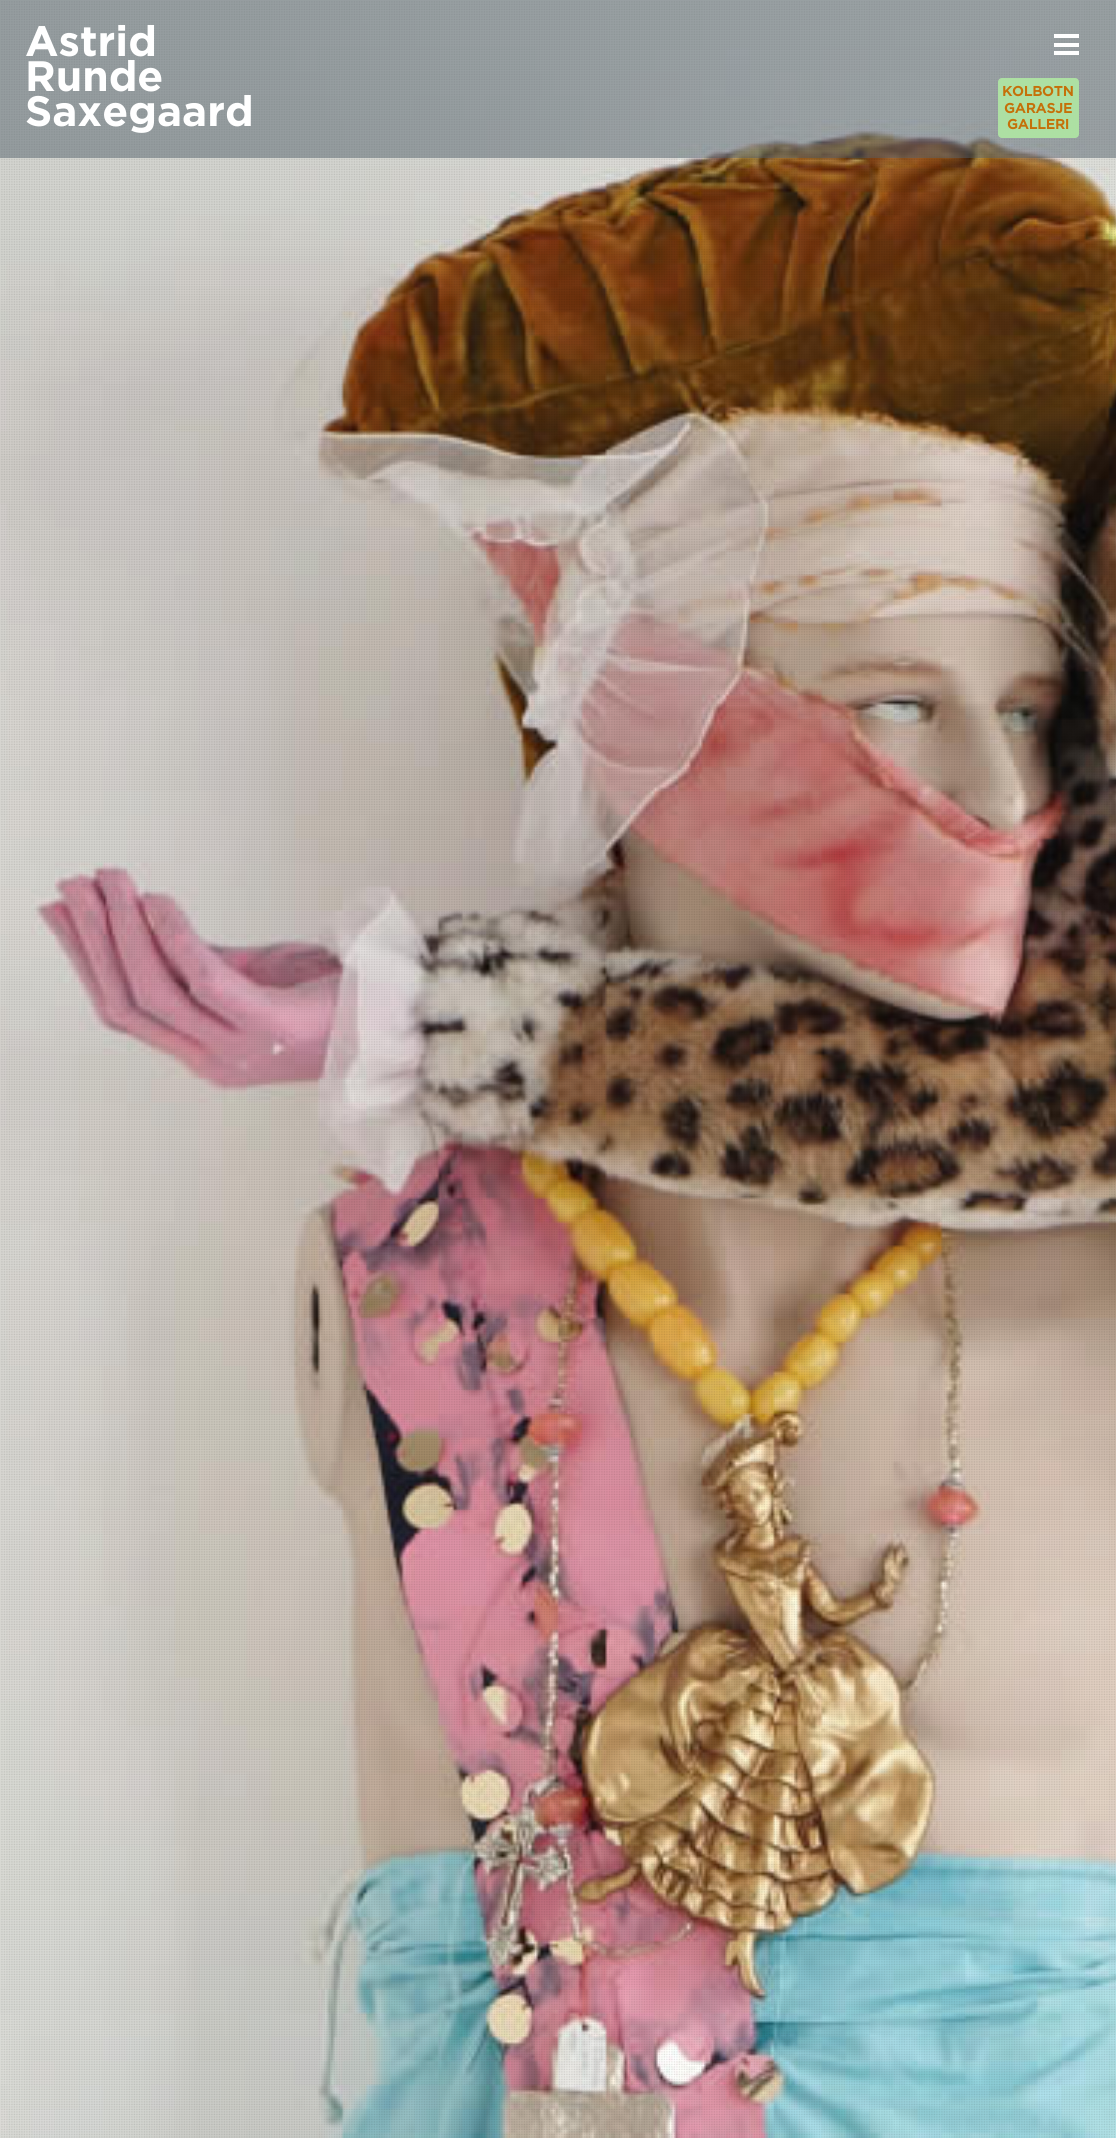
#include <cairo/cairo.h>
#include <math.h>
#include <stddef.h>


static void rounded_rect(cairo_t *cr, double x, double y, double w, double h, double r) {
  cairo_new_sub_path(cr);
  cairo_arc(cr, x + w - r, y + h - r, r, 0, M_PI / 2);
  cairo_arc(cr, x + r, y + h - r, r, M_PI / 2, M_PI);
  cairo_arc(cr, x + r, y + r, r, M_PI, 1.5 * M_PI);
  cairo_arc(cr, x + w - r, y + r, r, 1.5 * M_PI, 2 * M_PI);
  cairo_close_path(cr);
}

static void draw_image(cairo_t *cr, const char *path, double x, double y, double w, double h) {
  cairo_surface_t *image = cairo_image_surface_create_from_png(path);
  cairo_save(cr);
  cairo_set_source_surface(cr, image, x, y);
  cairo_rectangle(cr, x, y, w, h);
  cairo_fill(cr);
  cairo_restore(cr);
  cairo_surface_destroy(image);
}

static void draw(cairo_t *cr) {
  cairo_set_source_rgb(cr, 1, 1, 1);
  cairo_paint(cr);
  draw_image(cr, "images/1.png", 0, 0, 1116, 2138);
  draw_image(cr, "images/2.png", 1, 1, 1114, 2137);
  cairo_set_source_rgba(cr, 86 / 255.0, 101 / 255.0, 110 / 255.0, 0.5);
  cairo_rectangle(cr, 0, 0, 1116, 158);
  cairo_fill(cr);
  cairo_set_source_rgb(cr, 1, 1, 1);
  cairo_rectangle(cr, 1054, 34, 25, 4);
  cairo_fill(cr);
  cairo_rectangle(cr, 1054, 43, 25, 4);
  cairo_fill(cr);
  cairo_rectangle(cr, 1054, 51, 25, 4);
  cairo_fill(cr);
  cairo_set_source_rgb(cr, 173 / 255.0, 224 / 255.0, 163 / 255.0);
  rounded_rect(cr, 998, 78, 81, 60, 4);
  cairo_fill(cr);
  cairo_select_font_face(cr, "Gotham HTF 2", CAIRO_FONT_SLANT_NORMAL, CAIRO_FONT_WEIGHT_BOLD);
  cairo_set_font_size(cr, 42.5);
  cairo_set_source_rgb(cr, 1, 1, 1);
  cairo_move_to(cr, 25, 56);
  cairo_show_text(cr, "Astrid");
  cairo_move_to(cr, 25, 91);
  cairo_show_text(cr, "Runde");
  cairo_move_to(cr, 25, 126);
  cairo_show_text(cr, "Saxegaard");
  cairo_select_font_face(cr, "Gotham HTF", CAIRO_FONT_SLANT_NORMAL, CAIRO_FONT_WEIGHT_BOLD);
  cairo_set_font_size(cr, 13.75);
  cairo_set_source_rgb(cr, 197 / 255.0, 112 / 255.0, 9 / 255.0);
  cairo_move_to(cr, 1002, 96);
  cairo_show_text(cr, "KOLBOTN");
  cairo_move_to(cr, 1004, 113);
  cairo_show_text(cr, "GARASJE");
  cairo_move_to(cr, 1007, 129);
  cairo_show_text(cr, "GALLERI");
}

int main(void) {
  cairo_surface_t *surface = cairo_image_surface_create(CAIRO_FORMAT_RGB24, 1116, 2138);
  cairo_t *cr = cairo_create(surface);
  cairo_font_options_t *options = cairo_font_options_create();
  cairo_font_options_set_hint_metrics(options, CAIRO_HINT_METRICS_OFF);
  cairo_font_options_set_hint_style(options, CAIRO_HINT_STYLE_NONE);
  cairo_set_font_options(cr, options);
  cairo_set_miter_limit(cr, 4);
  draw(cr);
  cairo_surface_write_to_png(surface, "out.png");
  cairo_font_options_destroy(options);
  cairo_destroy(cr);
  cairo_surface_destroy(surface);
  return 0;
}
